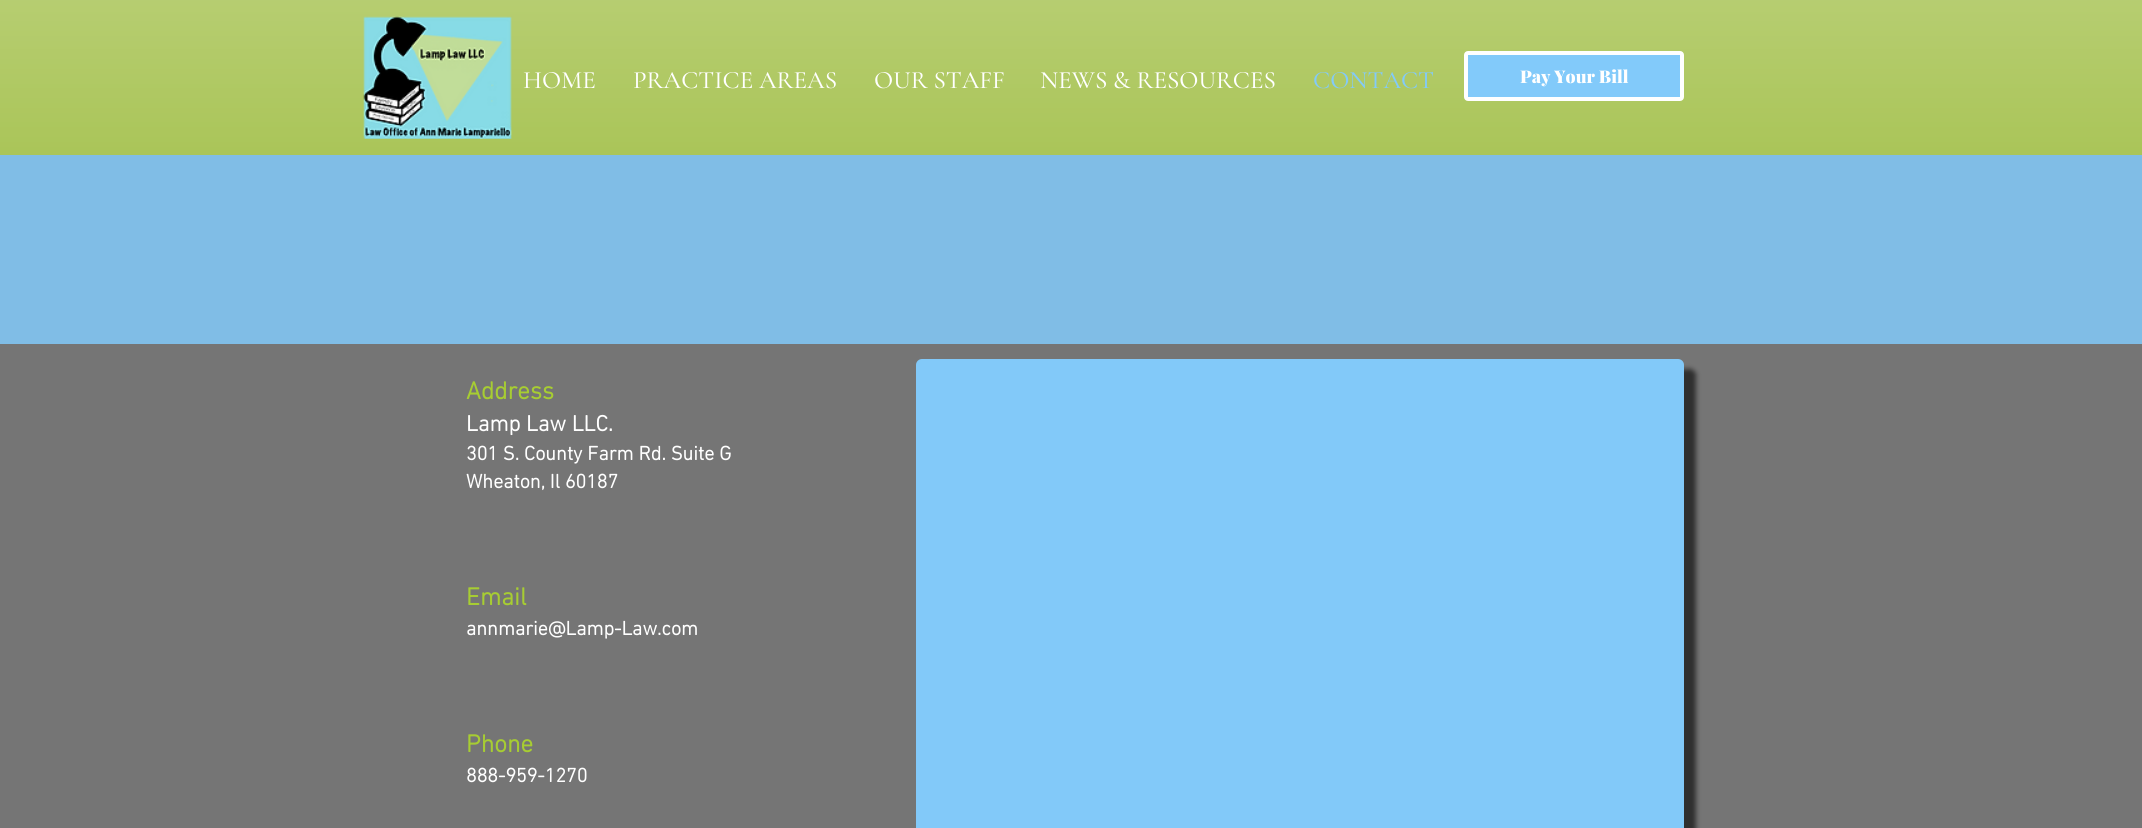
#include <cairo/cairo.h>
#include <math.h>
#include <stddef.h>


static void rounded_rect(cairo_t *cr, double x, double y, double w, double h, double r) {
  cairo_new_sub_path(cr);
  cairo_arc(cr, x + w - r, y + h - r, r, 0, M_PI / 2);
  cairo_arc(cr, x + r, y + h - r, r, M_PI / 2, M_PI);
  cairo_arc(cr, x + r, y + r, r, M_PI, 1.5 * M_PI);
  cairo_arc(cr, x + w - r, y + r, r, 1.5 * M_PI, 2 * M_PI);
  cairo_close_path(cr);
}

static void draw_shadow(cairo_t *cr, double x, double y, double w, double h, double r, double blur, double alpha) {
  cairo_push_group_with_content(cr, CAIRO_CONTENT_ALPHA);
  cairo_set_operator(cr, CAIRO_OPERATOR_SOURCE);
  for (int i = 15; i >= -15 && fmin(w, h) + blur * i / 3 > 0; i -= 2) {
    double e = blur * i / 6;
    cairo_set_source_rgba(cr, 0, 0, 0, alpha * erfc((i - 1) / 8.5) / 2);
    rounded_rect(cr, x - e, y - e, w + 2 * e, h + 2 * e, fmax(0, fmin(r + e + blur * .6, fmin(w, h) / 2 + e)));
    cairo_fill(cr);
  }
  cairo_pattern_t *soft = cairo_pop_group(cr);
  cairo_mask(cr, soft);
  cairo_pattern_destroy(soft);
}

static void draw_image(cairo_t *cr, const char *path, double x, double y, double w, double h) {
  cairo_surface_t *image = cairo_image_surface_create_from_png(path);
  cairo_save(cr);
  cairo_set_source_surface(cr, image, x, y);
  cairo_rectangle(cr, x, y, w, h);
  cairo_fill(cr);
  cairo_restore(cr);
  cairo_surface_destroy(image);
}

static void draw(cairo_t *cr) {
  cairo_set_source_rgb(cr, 117 / 255.0, 117 / 255.0, 117 / 255.0);
  cairo_paint(cr);
  cairo_set_source_rgb(cr, 157 / 255.0, 188 / 255.0, 63 / 255.0);
  cairo_rectangle(cr, 0, 0, 2142, 155);
  cairo_fill(cr);
  draw_image(cr, "images/1.png", 0, 0, 2142, 155);
  draw_image(cr, "images/2.png", 363, 16, 149, 123);
  cairo_set_source_rgb(cr, 130 / 255.0, 202 / 255.0, 250 / 255.0);
  rounded_rect(cr, 1466, 53, 216, 46, 2);
  cairo_fill_preserve(cr);
  cairo_set_source_rgb(cr, 1, 1, 1);
  cairo_set_line_width(cr, 4);
  cairo_stroke(cr);
  cairo_set_source_rgb(cr, 128 / 255.0, 189 / 255.0, 230 / 255.0);
  cairo_rectangle(cr, 0, 155, 2142, 189);
  cairo_fill(cr);
  cairo_save(cr);
  cairo_set_fill_rule(cr, CAIRO_FILL_RULE_EVEN_ODD);
  cairo_new_path(cr);
  cairo_move_to(cr, 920, 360);
  cairo_line_to(cr, 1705, 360);
  cairo_line_to(cr, 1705, 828);
  cairo_line_to(cr, 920, 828);
  cairo_close_path(cr);
  cairo_move_to(cr, 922, 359);
  cairo_line_to(cr, 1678, 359);
  cairo_curve_to(cr, 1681.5, 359, 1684, 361.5, 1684, 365);
  cairo_line_to(cr, 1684, 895);
  cairo_curve_to(cr, 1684, 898.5, 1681.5, 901, 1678, 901);
  cairo_line_to(cr, 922, 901);
  cairo_curve_to(cr, 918.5, 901, 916, 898.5, 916, 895);
  cairo_line_to(cr, 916, 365);
  cairo_curve_to(cr, 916, 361.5, 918.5, 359, 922, 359);
  cairo_close_path(cr);
  cairo_clip(cr);
  cairo_set_source_rgb(cr, 0, 0, 0);
  draw_shadow(cr, 929, 369, 767, 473, 6, 2.5, 0.6);
  cairo_restore(cr);
  cairo_set_source_rgba(cr, 130 / 255.0, 202 / 255.0, 250 / 255.0, 0.99);
  rounded_rect(cr, 916, 359, 768, 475, 6);
  cairo_fill(cr);
  cairo_select_font_face(cr, "Cormorant Garamond Medium", CAIRO_FONT_SLANT_NORMAL, CAIRO_FONT_WEIGHT_NORMAL);
  cairo_set_font_size(cr, 25);
  cairo_set_source_rgb(cr, 1, 1, 1);
  cairo_move_to(cr, 523, 88);
  cairo_show_text(cr, "HOME");
  cairo_move_to(cr, 633, 88);
  cairo_show_text(cr, "PRACTICE AREAS");
  cairo_move_to(cr, 874, 88);
  cairo_show_text(cr, "OUR STAFF");
  cairo_move_to(cr, 1040, 88);
  cairo_show_text(cr, "NEWS & RESOURCES");
  cairo_set_source_rgb(cr, 130 / 255.0, 202 / 255.0, 250 / 255.0);
  cairo_move_to(cr, 1313, 88);
  cairo_show_text(cr, "CONTACT");
  cairo_select_font_face(cr, "Playfair Display Black", CAIRO_FONT_SLANT_NORMAL, CAIRO_FONT_WEIGHT_NORMAL);
  cairo_set_font_size(cr, 17.5);
  cairo_set_source_rgb(cr, 1, 1, 1);
  cairo_move_to(cr, 1520, 83);
  cairo_show_text(cr, "Pay Your Bill");
  cairo_select_font_face(cr, "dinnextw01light", CAIRO_FONT_SLANT_NORMAL, CAIRO_FONT_WEIGHT_BOLD);
  cairo_set_font_size(cr, 25);
  cairo_set_source_rgb(cr, 167 / 255.0, 205 / 255.0, 50 / 255.0);
  cairo_move_to(cr, 466, 399);
  cairo_show_text(cr, "Address");
  cairo_set_font_size(cr, 22.5);
  cairo_set_source_rgb(cr, 1, 1, 1);
  cairo_move_to(cr, 466, 431);
  cairo_show_text(cr, "Lamp Law LLC.");
  cairo_set_font_size(cr, 20);
  cairo_move_to(cr, 466, 460);
  cairo_show_text(cr, "301 S. County Farm Rd. Suite G");
  cairo_move_to(cr, 466, 488);
  cairo_show_text(cr, "Wheaton, Il 60187");
  cairo_set_font_size(cr, 25);
  cairo_set_source_rgb(cr, 167 / 255.0, 205 / 255.0, 50 / 255.0);
  cairo_move_to(cr, 466, 605);
  cairo_show_text(cr, "Email");
  cairo_set_font_size(cr, 20);
  cairo_set_source_rgb(cr, 1, 1, 1);
  cairo_move_to(cr, 466, 635);
  cairo_show_text(cr, "annmarie@Lamp-Law.com");
  cairo_set_font_size(cr, 25);
  cairo_set_source_rgb(cr, 167 / 255.0, 205 / 255.0, 50 / 255.0);
  cairo_move_to(cr, 466, 752);
  cairo_show_text(cr, "Phone");
  cairo_set_font_size(cr, 20);
  cairo_set_source_rgb(cr, 1, 1, 1);
  cairo_move_to(cr, 466, 782);
  cairo_show_text(cr, "888-959-1270");
}

int main(void) {
  cairo_surface_t *surface = cairo_image_surface_create(CAIRO_FORMAT_RGB24, 2142, 828);
  cairo_t *cr = cairo_create(surface);
  cairo_font_options_t *options = cairo_font_options_create();
  cairo_font_options_set_hint_metrics(options, CAIRO_HINT_METRICS_OFF);
  cairo_font_options_set_hint_style(options, CAIRO_HINT_STYLE_NONE);
  cairo_set_font_options(cr, options);
  cairo_set_miter_limit(cr, 4);
  draw(cr);
  cairo_surface_write_to_png(surface, "out.png");
  cairo_font_options_destroy(options);
  cairo_destroy(cr);
  cairo_surface_destroy(surface);
  return 0;
}
